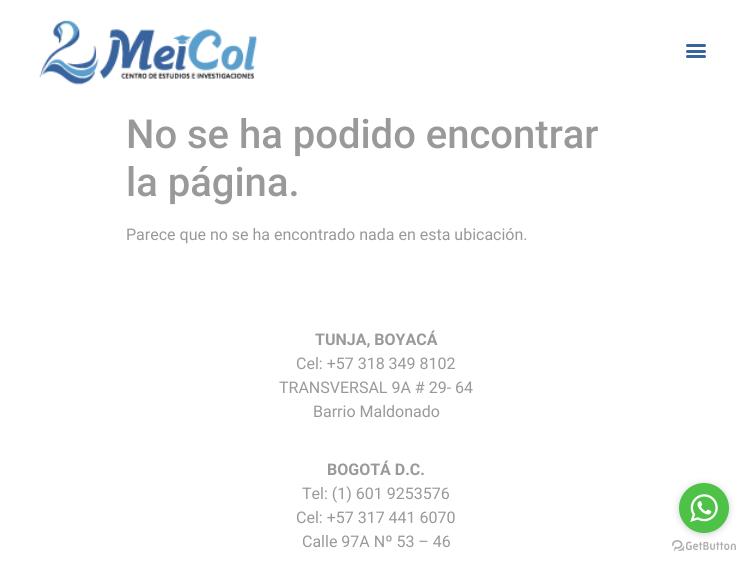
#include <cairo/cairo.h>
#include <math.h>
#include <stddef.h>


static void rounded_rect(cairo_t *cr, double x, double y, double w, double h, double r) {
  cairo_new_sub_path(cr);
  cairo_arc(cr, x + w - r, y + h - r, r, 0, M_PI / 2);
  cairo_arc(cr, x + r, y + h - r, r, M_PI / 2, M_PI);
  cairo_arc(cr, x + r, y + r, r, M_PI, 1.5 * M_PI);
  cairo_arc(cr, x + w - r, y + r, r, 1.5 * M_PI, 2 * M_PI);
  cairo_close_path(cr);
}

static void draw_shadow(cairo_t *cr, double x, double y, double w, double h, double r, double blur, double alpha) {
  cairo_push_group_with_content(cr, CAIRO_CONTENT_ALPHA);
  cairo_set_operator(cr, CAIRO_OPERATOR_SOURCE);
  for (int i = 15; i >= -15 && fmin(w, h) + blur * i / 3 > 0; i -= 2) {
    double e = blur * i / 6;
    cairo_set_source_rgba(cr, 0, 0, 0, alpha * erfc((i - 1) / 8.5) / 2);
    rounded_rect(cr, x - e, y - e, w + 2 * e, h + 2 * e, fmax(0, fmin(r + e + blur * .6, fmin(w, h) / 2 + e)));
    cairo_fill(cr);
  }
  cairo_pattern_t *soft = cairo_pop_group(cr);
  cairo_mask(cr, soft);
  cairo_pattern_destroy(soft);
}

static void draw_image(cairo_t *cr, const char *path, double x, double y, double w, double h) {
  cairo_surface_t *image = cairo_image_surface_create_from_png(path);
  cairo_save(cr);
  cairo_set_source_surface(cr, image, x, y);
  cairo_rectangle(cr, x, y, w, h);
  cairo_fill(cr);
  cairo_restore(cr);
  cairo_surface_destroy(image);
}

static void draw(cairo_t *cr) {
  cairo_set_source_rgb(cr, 1, 1, 1);
  cairo_paint(cr);
  draw_image(cr, "images/1.png", 39, 20, 218, 65);
  cairo_set_source_rgb(cr, 56 / 255.0, 99 / 255.0, 157 / 255.0);
  rounded_rect(cr, 686, 50, 20, 3, 1.5);
  cairo_fill(cr);
  rounded_rect(cr, 686, 44, 20, 3, 1.5);
  cairo_fill(cr);
  rounded_rect(cr, 686, 55, 20, 3, 1.5);
  cairo_fill(cr);
  draw_image(cr, "images/3.png", 672, 540, 64, 11);
  cairo_set_source_rgb(cr, 136 / 255.0, 136 / 255.0, 136 / 255.0);
  draw_shadow(cr, 679, 484, 50, 50, 25, 3.5, 0.4);
  cairo_set_source_rgb(cr, 77 / 255.0, 194 / 255.0, 71 / 255.0);
  cairo_arc(cr, 704, 508, 25, 0, 2 * M_PI);
  cairo_fill(cr);
  draw_image(cr, "images/2.png", 690, 494, 28, 28);
  cairo_select_font_face(cr, "Roboto Medium", CAIRO_FONT_SLANT_NORMAL, CAIRO_FONT_WEIGHT_NORMAL);
  cairo_set_font_size(cr, 40);
  cairo_set_source_rgb(cr, 153 / 255.0, 153 / 255.0, 153 / 255.0);
  cairo_move_to(cr, 126, 148);
  cairo_show_text(cr, "No se ha podido encontrar");
  cairo_move_to(cr, 126, 196);
  cairo_show_text(cr, "la página.");
  cairo_select_font_face(cr, "Roboto", CAIRO_FONT_SLANT_NORMAL, CAIRO_FONT_WEIGHT_NORMAL);
  cairo_set_font_size(cr, 16);
  cairo_move_to(cr, 126, 240);
  cairo_show_text(cr, "Parece que no se ha encontrado nada en esta ubicación.");
  cairo_select_font_face(cr, "Roboto", CAIRO_FONT_SLANT_NORMAL, CAIRO_FONT_WEIGHT_BOLD);
  cairo_move_to(cr, 315, 345);
  cairo_show_text(cr, "TUNJA, BOYACÁ");
  cairo_select_font_face(cr, "Roboto", CAIRO_FONT_SLANT_NORMAL, CAIRO_FONT_WEIGHT_NORMAL);
  cairo_move_to(cr, 296, 369);
  cairo_show_text(cr, "Cel: +57 318 349 8102");
  cairo_move_to(cr, 279, 393);
  cairo_show_text(cr, "TRANSVERSAL 9A # 29- 64");
  cairo_move_to(cr, 313, 417);
  cairo_show_text(cr, "Barrio Maldonado");
  cairo_select_font_face(cr, "Roboto", CAIRO_FONT_SLANT_NORMAL, CAIRO_FONT_WEIGHT_BOLD);
  cairo_move_to(cr, 327, 475);
  cairo_show_text(cr, "BOGOTÁ D.C.");
  cairo_select_font_face(cr, "Roboto", CAIRO_FONT_SLANT_NORMAL, CAIRO_FONT_WEIGHT_NORMAL);
  cairo_move_to(cr, 302, 499);
  cairo_show_text(cr, "Tel: (1) 601 9253576");
  cairo_move_to(cr, 296, 523);
  cairo_show_text(cr, "Cel: +57 317 441 6070");
  cairo_move_to(cr, 302, 547);
  cairo_show_text(cr, "Calle 97A Nº 53 – 46");
}

int main(void) {
  cairo_surface_t *surface = cairo_image_surface_create(CAIRO_FORMAT_RGB24, 752, 567);
  cairo_t *cr = cairo_create(surface);
  cairo_font_options_t *options = cairo_font_options_create();
  cairo_font_options_set_hint_metrics(options, CAIRO_HINT_METRICS_OFF);
  cairo_font_options_set_hint_style(options, CAIRO_HINT_STYLE_NONE);
  cairo_set_font_options(cr, options);
  cairo_set_miter_limit(cr, 4);
  draw(cr);
  cairo_surface_write_to_png(surface, "out.png");
  cairo_font_options_destroy(options);
  cairo_destroy(cr);
  cairo_surface_destroy(surface);
  return 0;
}
